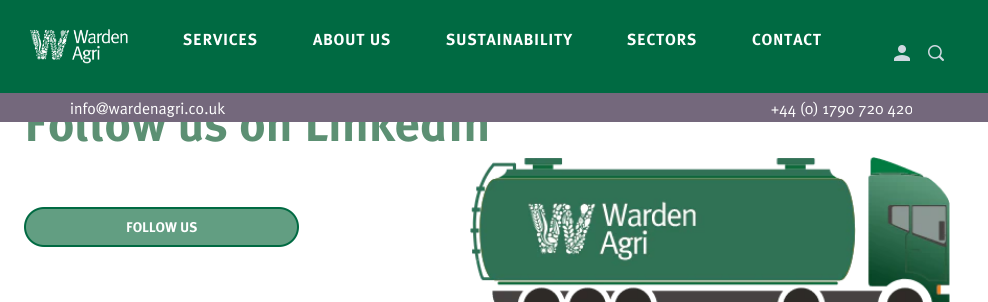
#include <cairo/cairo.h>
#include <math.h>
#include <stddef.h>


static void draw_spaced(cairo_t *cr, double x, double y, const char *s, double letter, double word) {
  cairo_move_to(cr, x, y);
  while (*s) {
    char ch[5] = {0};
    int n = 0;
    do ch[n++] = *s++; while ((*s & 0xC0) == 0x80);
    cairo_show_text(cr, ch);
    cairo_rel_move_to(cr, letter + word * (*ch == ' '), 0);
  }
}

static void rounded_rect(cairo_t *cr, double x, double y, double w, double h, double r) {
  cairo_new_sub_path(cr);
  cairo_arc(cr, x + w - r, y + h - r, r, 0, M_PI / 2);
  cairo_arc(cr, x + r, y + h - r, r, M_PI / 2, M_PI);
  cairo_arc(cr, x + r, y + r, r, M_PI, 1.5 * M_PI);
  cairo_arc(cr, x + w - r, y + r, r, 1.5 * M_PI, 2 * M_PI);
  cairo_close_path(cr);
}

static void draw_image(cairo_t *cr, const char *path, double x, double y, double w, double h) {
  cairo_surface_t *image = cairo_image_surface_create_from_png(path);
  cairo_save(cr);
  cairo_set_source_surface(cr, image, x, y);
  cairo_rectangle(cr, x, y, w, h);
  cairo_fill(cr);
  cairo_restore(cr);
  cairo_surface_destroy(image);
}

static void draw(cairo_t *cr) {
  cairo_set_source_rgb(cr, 1, 1, 1);
  cairo_paint(cr);
  cairo_set_source_rgb(cr, 0, 106 / 255.0, 66 / 255.0);
  cairo_rectangle(cr, 0, 0, 988, 93);
  cairo_fill(cr);
  draw_image(cr, "images/1.png", 30, 29, 98, 35);
  draw_image(cr, "images/2.png", 894, 45, 16, 16);
  draw_image(cr, "images/3.png", 928, 45, 16, 16);
  cairo_set_source_rgb(cr, 98 / 255.0, 158 / 255.0, 130 / 255.0);
  rounded_rect(cr, 25, 208, 273, 38, 19);
  cairo_fill_preserve(cr);
  cairo_set_source_rgb(cr, 0, 106 / 255.0, 66 / 255.0);
  cairo_stroke(cr);
  draw_image(cr, "images/4.png", 470, 157, 480, 145);
  cairo_select_font_face(cr, "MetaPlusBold", CAIRO_FONT_SLANT_NORMAL, CAIRO_FONT_WEIGHT_BOLD);
  cairo_set_font_size(cr, 16);
  cairo_set_source_rgb(cr, 1, 1, 1);
  draw_spaced(cr, 183, 45, "SERVICES", 0.75, 0);
  draw_spaced(cr, 313, 45, "ABOUT US", 0.75, 0);
  draw_spaced(cr, 446, 45, "SUSTAINABILITY", 0.75, 0);
  draw_spaced(cr, 627, 45, "SECTORS", 0.75, 0);
  draw_spaced(cr, 752, 45, "CONTACT", 0.75, 0);
  cairo_set_font_size(cr, 50);
  cairo_set_source_rgb(cr, 92 / 255.0, 144 / 255.0, 115 / 255.0);
  cairo_move_to(cr, 24, 141);
  cairo_show_text(cr, "Follow us on LinkedIn");
  cairo_set_source_rgb(cr, 116 / 255.0, 104 / 255.0, 124 / 255.0);
  cairo_rectangle(cr, 0, 93, 988, 29);
  cairo_fill(cr);
  cairo_select_font_face(cr, "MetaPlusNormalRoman", CAIRO_FONT_SLANT_NORMAL, CAIRO_FONT_WEIGHT_NORMAL);
  cairo_set_font_size(cr, 16);
  cairo_set_source_rgb(cr, 1, 1, 1);
  cairo_move_to(cr, 771, 114);
  cairo_show_text(cr, "+44 (0) 1790 720 420");
  cairo_move_to(cr, 70, 114);
  cairo_show_text(cr, "info@wardenagri.co.uk");
  cairo_select_font_face(cr, "MetaPlusBold", CAIRO_FONT_SLANT_NORMAL, CAIRO_FONT_WEIGHT_BOLD);
  cairo_set_font_size(cr, 14);
  cairo_move_to(cr, 126, 232);
  cairo_show_text(cr, "FOLLOW US");
}

int main(void) {
  cairo_surface_t *surface = cairo_image_surface_create(CAIRO_FORMAT_RGB24, 988, 302);
  cairo_t *cr = cairo_create(surface);
  cairo_font_options_t *options = cairo_font_options_create();
  cairo_font_options_set_hint_metrics(options, CAIRO_HINT_METRICS_OFF);
  cairo_font_options_set_hint_style(options, CAIRO_HINT_STYLE_NONE);
  cairo_set_font_options(cr, options);
  cairo_set_miter_limit(cr, 4);
  draw(cr);
  cairo_surface_write_to_png(surface, "out.png");
  cairo_font_options_destroy(options);
  cairo_destroy(cr);
  cairo_surface_destroy(surface);
  return 0;
}
